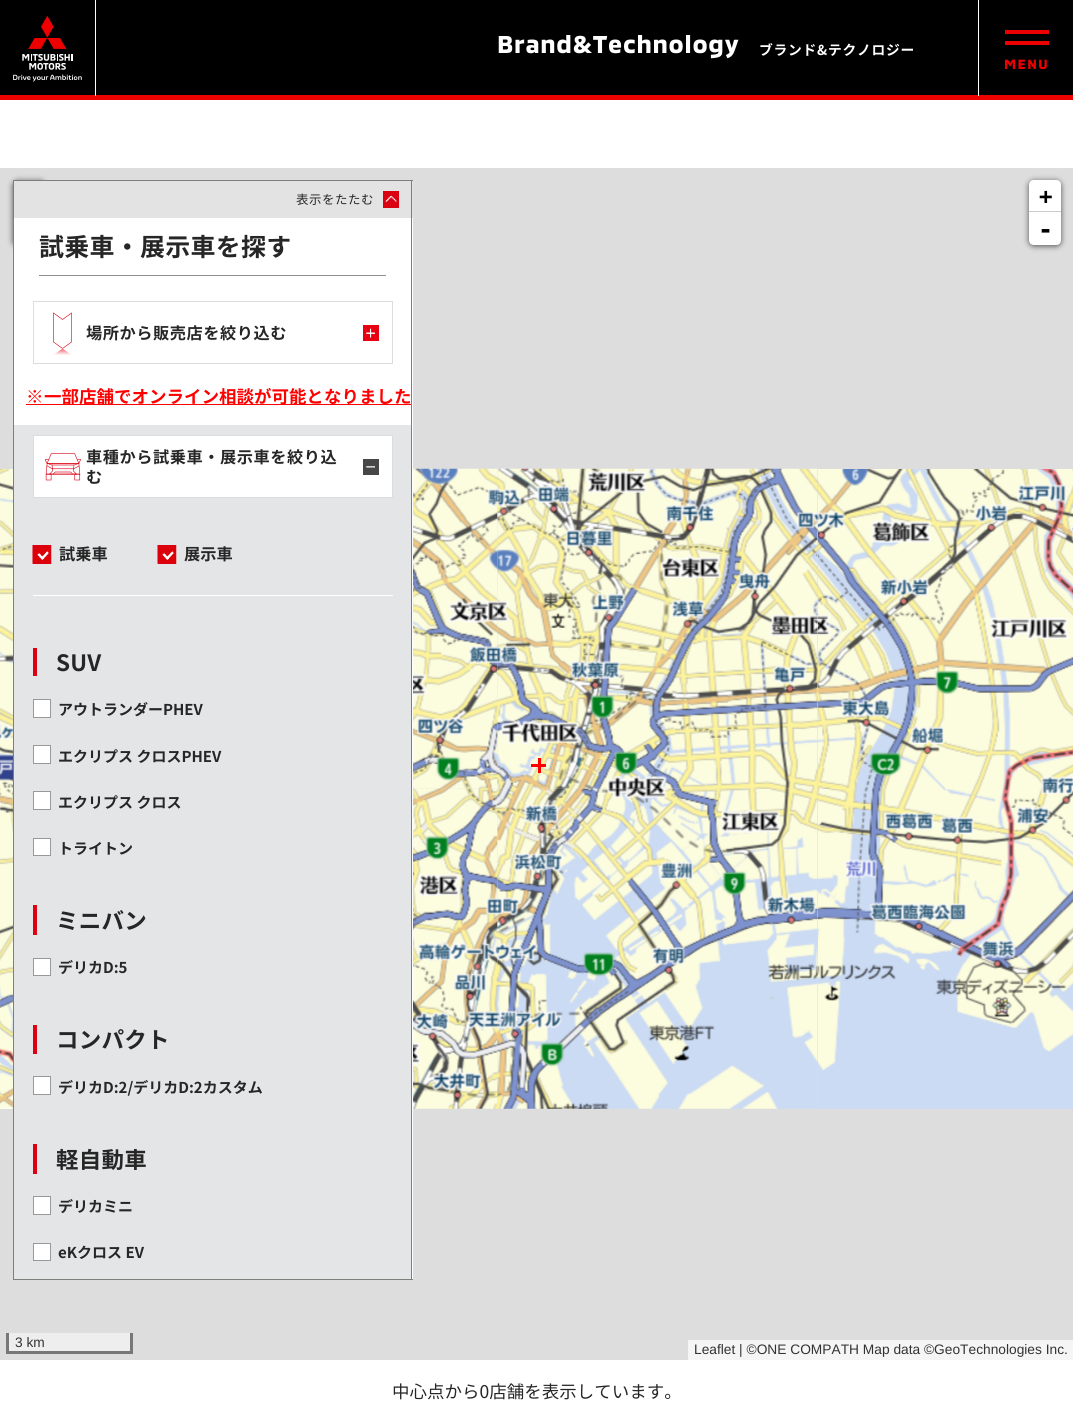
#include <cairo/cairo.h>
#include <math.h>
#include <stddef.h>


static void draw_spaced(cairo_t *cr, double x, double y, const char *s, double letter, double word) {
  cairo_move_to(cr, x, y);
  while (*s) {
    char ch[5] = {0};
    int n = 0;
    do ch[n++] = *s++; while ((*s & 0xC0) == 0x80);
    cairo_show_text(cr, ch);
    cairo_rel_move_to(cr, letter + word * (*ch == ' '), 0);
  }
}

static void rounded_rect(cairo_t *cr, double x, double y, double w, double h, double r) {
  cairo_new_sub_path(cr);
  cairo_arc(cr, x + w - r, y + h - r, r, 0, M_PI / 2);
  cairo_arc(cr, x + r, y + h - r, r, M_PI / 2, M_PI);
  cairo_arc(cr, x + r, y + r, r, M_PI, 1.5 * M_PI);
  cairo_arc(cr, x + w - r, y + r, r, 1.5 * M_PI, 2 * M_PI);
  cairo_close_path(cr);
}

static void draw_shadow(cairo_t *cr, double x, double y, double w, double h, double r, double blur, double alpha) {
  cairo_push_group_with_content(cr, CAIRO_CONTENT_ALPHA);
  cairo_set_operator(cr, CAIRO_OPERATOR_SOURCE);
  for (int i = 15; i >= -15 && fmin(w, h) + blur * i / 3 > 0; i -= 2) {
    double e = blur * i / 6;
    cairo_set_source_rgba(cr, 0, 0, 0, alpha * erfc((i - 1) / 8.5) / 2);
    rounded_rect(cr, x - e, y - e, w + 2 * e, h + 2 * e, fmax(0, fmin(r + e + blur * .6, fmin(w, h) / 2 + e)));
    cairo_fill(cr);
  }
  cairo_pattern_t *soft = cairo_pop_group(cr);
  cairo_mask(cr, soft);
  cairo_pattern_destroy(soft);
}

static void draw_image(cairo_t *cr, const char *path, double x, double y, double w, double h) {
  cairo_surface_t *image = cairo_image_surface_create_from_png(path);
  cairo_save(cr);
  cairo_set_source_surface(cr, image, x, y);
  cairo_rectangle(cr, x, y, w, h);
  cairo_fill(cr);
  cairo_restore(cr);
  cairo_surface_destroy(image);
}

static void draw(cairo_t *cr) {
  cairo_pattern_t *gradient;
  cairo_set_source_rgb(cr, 1, 1, 1);
  cairo_paint(cr);
  cairo_set_source_rgb(cr, 0, 0, 0);
  cairo_rectangle(cr, 0, 0, 1073, 95);
  cairo_fill(cr);
  cairo_set_source_rgb(cr, 237 / 255.0, 0, 0);
  cairo_rectangle(cr, 0, 95, 1073, 5);
  cairo_fill(cr);
  cairo_set_source_rgb(cr, 1, 1, 1);
  cairo_rectangle(cr, 95, 0, 1, 96);
  cairo_fill(cr);
  draw_image(cr, "images/1.png", 13, 15, 69, 67);
  cairo_rectangle(cr, 978, 0, 1, 96);
  cairo_fill(cr);
  cairo_set_source_rgb(cr, 237 / 255.0, 0, 0);
  cairo_rectangle(cr, 1005, 30, 44, 4);
  cairo_fill(cr);
  cairo_rectangle(cr, 1005, 41, 44, 4);
  cairo_fill(cr);
  cairo_set_source_rgb(cr, 221 / 255.0, 221 / 255.0, 221 / 255.0);
  cairo_rectangle(cr, 0, 168, 1073, 1192);
  cairo_fill(cr);
  cairo_set_source_rgb(cr, 0, 0, 0);
  draw_shadow(cr, 13, 181, 32, 65, 5, 3, 0.65);
  draw_shadow(cr, 1029, 181, 32, 65, 5, 3, 0.65);
  cairo_set_source_rgb(cr, 1, 1, 1);
  cairo_new_path(cr);
  cairo_move_to(cr, 1034, 180);
  cairo_line_to(cr, 1056, 180);
  cairo_curve_to(cr, 1059, 180, 1061, 182, 1061, 185);
  cairo_line_to(cr, 1061, 213);
  cairo_line_to(cr, 1029, 213);
  cairo_line_to(cr, 1029, 185);
  cairo_curve_to(cr, 1029, 182, 1031, 180, 1034, 180);
  cairo_close_path(cr);
  cairo_fill(cr);
  cairo_set_source_rgb(cr, 204 / 255.0, 204 / 255.0, 204 / 255.0);
  cairo_rectangle(cr, 1029, 211, 32, 1);
  cairo_fill(cr);
  cairo_set_source_rgb(cr, 1, 1, 1);
  cairo_new_path(cr);
  cairo_move_to(cr, 1029, 213);
  cairo_line_to(cr, 1061, 213);
  cairo_line_to(cr, 1061, 240);
  cairo_curve_to(cr, 1061, 243, 1059, 245, 1056, 245);
  cairo_line_to(cr, 1034, 245);
  cairo_curve_to(cr, 1031, 245, 1029, 243, 1029, 240);
  cairo_close_path(cr);
  cairo_fill(cr);
  cairo_set_source_rgb(cr, 238 / 255.0, 238 / 255.0, 238 / 255.0);
  cairo_rectangle(cr, 9, 1333, 121, 18);
  cairo_fill(cr);
  cairo_set_source_rgb(cr, 119 / 255.0, 119 / 255.0, 119 / 255.0);
  cairo_rectangle(cr, 130, 1333, 3, 21);
  cairo_fill(cr);
  cairo_rectangle(cr, 6, 1351, 127, 3);
  cairo_fill(cr);
  cairo_rectangle(cr, 6, 1333, 3, 21);
  cairo_fill(cr);
  cairo_set_source_rgb(cr, 245 / 255.0, 245 / 255.0, 245 / 255.0);
  cairo_rectangle(cr, 688, 1340, 385, 20);
  cairo_fill(cr);
  draw_image(cr, "images/2.png", 0, 469, 13, 320);
  draw_image(cr, "images/3.png", 413, 468, 85, 321);
  draw_image(cr, "images/4.png", 497, 468, 321, 321);
  draw_image(cr, "images/5.png", 818, 469, 255, 320);
  draw_image(cr, "images/6.png", 0, 789, 13, 320);
  draw_image(cr, "images/7.png", 413, 788, 85, 321);
  draw_image(cr, "images/8.png", 497, 788, 321, 321);
  draw_image(cr, "images/9.png", 818, 789, 255, 320);
  cairo_set_source_rgb(cr, 1, 0, 0);
  cairo_rectangle(cr, 538, 758, 3, 15);
  cairo_fill(cr);
  cairo_rectangle(cr, 531, 764, 15, 3);
  cairo_fill(cr);
  cairo_set_source_rgb(cr, 227 / 255.0, 227 / 255.0, 227 / 255.0);
  cairo_rectangle(cr, 14, 181, 399, 37);
  cairo_fill(cr);
  cairo_set_source_rgb(cr, 127 / 255.0, 126 / 255.0, 122 / 255.0);
  cairo_rectangle(cr, 13, 180, 400, 1);
  cairo_fill(cr);
  cairo_rectangle(cr, 411, 180, 1, 38);
  cairo_fill(cr);
  cairo_rectangle(cr, 13, 180, 1, 38);
  cairo_fill(cr);
  cairo_set_source_rgb(cr, 218 / 255.0, 1 / 255.0, 18 / 255.0);
  cairo_rectangle(cr, 383, 191, 16, 17);
  cairo_fill(cr);
  draw_image(cr, "images/10.png", 385, 195, 12, 8);
  cairo_set_source_rgb(cr, 1, 1, 1);
  cairo_rectangle(cr, 14, 218, 399, 1061);
  cairo_fill(cr);
  cairo_set_source_rgb(cr, 127 / 255.0, 126 / 255.0, 122 / 255.0);
  cairo_rectangle(cr, 411, 218, 1, 1062);
  cairo_fill(cr);
  cairo_rectangle(cr, 13, 1279, 400, 1);
  cairo_fill(cr);
  cairo_rectangle(cr, 13, 218, 1, 1062);
  cairo_fill(cr);
  cairo_set_source_rgb(cr, 144 / 255.0, 144 / 255.0, 144 / 255.0);
  cairo_rectangle(cr, 39, 275, 347, 1);
  cairo_fill(cr);
  cairo_rectangle(cr, 33.5, 301.5, 359, 62);
  cairo_set_source_rgb(cr, 220 / 255.0, 220 / 255.0, 220 / 255.0);
  cairo_set_line_width(cr, 1);
  cairo_stroke(cr);
  cairo_new_path(cr);
  cairo_move_to(cr, 71.5, 342);
  cairo_line_to(cr, 62.5, 348.5);
  cairo_line_to(cr, 53.5, 342);
  cairo_line_to(cr, 53.5, 313);
  cairo_line_to(cr, 62.5, 319.5);
  cairo_line_to(cr, 71.5, 313);
  cairo_close_path(cr);
  cairo_set_source_rgb(cr, 218 / 255.0, 1 / 255.0, 18 / 255.0);
  cairo_set_line_width(cr, 0.6);
  cairo_stroke(cr);
  gradient = cairo_pattern_create_linear(63, 350, 63, 355);
  cairo_pattern_add_color_stop_rgba(gradient, 0, 243 / 255.0, 128 / 255.0, 139 / 255.0, 1);
  cairo_pattern_add_color_stop_rgba(gradient, 1, 1, 1, 1, 1);
  cairo_set_source(cr, gradient);
  cairo_pattern_destroy(gradient);
  cairo_new_path(cr);
  cairo_move_to(cr, 53.5, 355);
  cairo_line_to(cr, 62.5, 348.5);
  cairo_line_to(cr, 71.5, 355);
  cairo_close_path(cr);
  cairo_fill(cr);
  cairo_set_source_rgb(cr, 230 / 255.0, 0, 18 / 255.0);
  cairo_rectangle(cr, 363, 325, 16, 16);
  cairo_fill(cr);
  draw_image(cr, "images/11.png", 366, 328, 9, 10);
  cairo_set_source_rgb(cr, 1, 0, 0);
  cairo_rectangle(cr, 26, 404, 385, 1);
  cairo_fill(cr);
  cairo_set_source_rgb(cr, 227 / 255.0, 229 / 255.0, 230 / 255.0);
  cairo_rectangle(cr, 14, 425, 397, 854);
  cairo_fill(cr);
  cairo_set_source_rgb(cr, 1, 1, 1);
  cairo_rectangle(cr, 33.5, 435.5, 359, 62);
  cairo_fill_preserve(cr);
  cairo_set_source_rgb(cr, 220 / 255.0, 220 / 255.0, 220 / 255.0);
  cairo_set_line_width(cr, 1);
  cairo_stroke(cr);
  draw_image(cr, "images/12.png", 44, 453, 37, 28);
  cairo_set_source_rgb(cr, 71 / 255.0, 71 / 255.0, 71 / 255.0);
  cairo_rectangle(cr, 363, 459, 16, 16);
  cairo_fill(cr);
  draw_image(cr, "images/13.png", 366, 466, 9, 2);
  cairo_set_source_rgb(cr, 1, 1, 1);
  cairo_rectangle(cr, 33, 595, 360, 1);
  cairo_fill(cr);
  draw_image(cr, "images/14.png", 32, 545, 20, 19);
  cairo_rectangle(cr, 33.5, 545.5, 17, 18);
  cairo_set_source_rgb(cr, 218 / 255.0, 0, 18 / 255.0);
  cairo_stroke(cr);
  draw_image(cr, "images/14.png", 157, 545, 20, 19);
  cairo_rectangle(cr, 158.5, 545.5, 17, 18);
  cairo_stroke(cr);
  cairo_set_source_rgb(cr, 221 / 255.0, 0, 18 / 255.0);
  cairo_rectangle(cr, 33, 648, 4, 28);
  cairo_fill(cr);
  cairo_set_source_rgb(cr, 1, 1, 1);
  cairo_rectangle(cr, 33.5, 699.5, 17, 18);
  cairo_fill_preserve(cr);
  cairo_set_source_rgb(cr, 153 / 255.0, 153 / 255.0, 153 / 255.0);
  cairo_stroke(cr);
  cairo_set_source_rgb(cr, 1, 1, 1);
  cairo_rectangle(cr, 33.5, 745.5, 17, 18);
  cairo_fill_preserve(cr);
  cairo_set_source_rgb(cr, 153 / 255.0, 153 / 255.0, 153 / 255.0);
  cairo_stroke(cr);
  cairo_set_source_rgb(cr, 1, 1, 1);
  cairo_rectangle(cr, 33.5, 791.5, 17, 18);
  cairo_fill_preserve(cr);
  cairo_set_source_rgb(cr, 153 / 255.0, 153 / 255.0, 153 / 255.0);
  cairo_stroke(cr);
  cairo_set_source_rgb(cr, 1, 1, 1);
  cairo_rectangle(cr, 33.5, 838.5, 17, 17);
  cairo_fill_preserve(cr);
  cairo_set_source_rgb(cr, 153 / 255.0, 153 / 255.0, 153 / 255.0);
  cairo_stroke(cr);
  cairo_set_source_rgb(cr, 221 / 255.0, 0, 18 / 255.0);
  cairo_rectangle(cr, 33, 905, 4, 30);
  cairo_fill(cr);
  cairo_set_source_rgb(cr, 1, 1, 1);
  cairo_rectangle(cr, 33.5, 958.5, 17, 17);
  cairo_fill_preserve(cr);
  cairo_set_source_rgb(cr, 153 / 255.0, 153 / 255.0, 153 / 255.0);
  cairo_stroke(cr);
  cairo_set_source_rgb(cr, 221 / 255.0, 0, 18 / 255.0);
  cairo_rectangle(cr, 33, 1025, 4, 29);
  cairo_fill(cr);
  cairo_set_source_rgb(cr, 1, 1, 1);
  cairo_rectangle(cr, 33.5, 1076.5, 17, 18);
  cairo_fill_preserve(cr);
  cairo_set_source_rgb(cr, 153 / 255.0, 153 / 255.0, 153 / 255.0);
  cairo_stroke(cr);
  cairo_set_source_rgb(cr, 221 / 255.0, 0, 18 / 255.0);
  cairo_rectangle(cr, 33, 1144, 4, 30);
  cairo_fill(cr);
  cairo_set_source_rgb(cr, 1, 1, 1);
  cairo_rectangle(cr, 33.5, 1196.5, 17, 18);
  cairo_fill_preserve(cr);
  cairo_set_source_rgb(cr, 153 / 255.0, 153 / 255.0, 153 / 255.0);
  cairo_stroke(cr);
  cairo_set_source_rgb(cr, 1, 1, 1);
  cairo_rectangle(cr, 33.5, 1243.5, 17, 17);
  cairo_fill_preserve(cr);
  cairo_set_source_rgb(cr, 153 / 255.0, 153 / 255.0, 153 / 255.0);
  cairo_stroke(cr);
  cairo_select_font_face(cr, "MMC", CAIRO_FONT_SLANT_NORMAL, CAIRO_FONT_WEIGHT_BOLD);
  cairo_set_font_size(cr, 25);
  cairo_set_source_rgb(cr, 1, 1, 1);
  draw_spaced(cr, 497, 53, "Brand&Technology", 0.75, 0);
  cairo_select_font_face(cr, "Noto Sans JP", CAIRO_FONT_SLANT_NORMAL, CAIRO_FONT_WEIGHT_BOLD);
  cairo_set_font_size(cr, 13.75);
  draw_spaced(cr, 759, 55, "ブランド&テクノロジー", 0.75, 0);
  cairo_select_font_face(cr, "MMC", CAIRO_FONT_SLANT_NORMAL, CAIRO_FONT_WEIGHT_BOLD);
  cairo_set_source_rgb(cr, 237 / 255.0, 0, 0);
  draw_spaced(cr, 1004, 69, "MENU", 1.5, 0);
  cairo_select_font_face(cr, "DejaVu Sans Mono", CAIRO_FONT_SLANT_NORMAL, CAIRO_FONT_WEIGHT_BOLD);
  cairo_set_font_size(cr, 22.5);
  cairo_set_source_rgb(cr, 0, 0, 0);
  cairo_move_to(cr, 1039, 204);
  cairo_show_text(cr, "+");
  cairo_set_font_size(cr, 25);
  cairo_move_to(cr, 1038, 238);
  cairo_show_text(cr, "-");
  cairo_select_font_face(cr, "Liberation Sans", CAIRO_FONT_SLANT_NORMAL, CAIRO_FONT_WEIGHT_NORMAL);
  cairo_set_font_size(cr, 13.75);
  cairo_set_source_rgb(cr, 51 / 255.0, 51 / 255.0, 51 / 255.0);
  cairo_move_to(cr, 15, 1347);
  cairo_show_text(cr, "3 km");
  cairo_move_to(cr, 694, 1354);
  cairo_show_text(cr, "Leaflet | ©ONE COMPATH Map data ©GeoTechnologies Inc.");
  cairo_select_font_face(cr, "Noto Sans JP", CAIRO_FONT_SLANT_NORMAL, CAIRO_FONT_WEIGHT_NORMAL);
  cairo_set_font_size(cr, 17.5);
  cairo_set_source_rgb(cr, 38 / 255.0, 38 / 255.0, 38 / 255.0);
  cairo_move_to(cr, 392, 1398);
  cairo_show_text(cr, "中心点から0店舗を表示しています。");
  cairo_set_font_size(cr, 12.5);
  draw_spaced(cr, 296, 204, "表示をたたむ", 0.5, 0);
  cairo_select_font_face(cr, "Noto Sans JP", CAIRO_FONT_SLANT_NORMAL, CAIRO_FONT_WEIGHT_BOLD);
  cairo_set_font_size(cr, 25);
  draw_spaced(cr, 39, 256, "試乗車・展示車を探す", 0.25, 0);
  cairo_set_font_size(cr, 16.25);
  draw_spaced(cr, 86, 339, "場所から販売店を絞り込む", 0.5, 0);
  cairo_select_font_face(cr, "Noto Sans CJK JP", CAIRO_FONT_SLANT_NORMAL, CAIRO_FONT_WEIGHT_BOLD);
  cairo_set_font_size(cr, 17.5);
  cairo_set_source_rgb(cr, 1, 0, 0);
  cairo_move_to(cr, 26, 403);
  cairo_show_text(cr, "※");
  cairo_select_font_face(cr, "Noto Sans JP", CAIRO_FONT_SLANT_NORMAL, CAIRO_FONT_WEIGHT_BOLD);
  cairo_move_to(cr, 44, 403);
  cairo_show_text(cr, "一部店舗でオンライン相談が可能となりました");
  cairo_set_font_size(cr, 16.25);
  cairo_set_source_rgb(cr, 38 / 255.0, 38 / 255.0, 38 / 255.0);
  draw_spaced(cr, 86, 463, "車種から試乗車・展示車を絞り込", 0.5, 0);
  draw_spaced(cr, 86, 483, "む", 0.5, 0);
  cairo_move_to(cr, 59, 560);
  cairo_show_text(cr, "試乗車");
  cairo_move_to(cr, 184, 560);
  cairo_show_text(cr, "展示車");
  cairo_set_font_size(cr, 22.5);
  draw_spaced(cr, 56, 671, "SUV", 0.25, 0);
  cairo_set_font_size(cr, 15);
  cairo_move_to(cr, 58, 715);
  cairo_show_text(cr, "アウトランダーPHEV");
  cairo_move_to(cr, 58, 762);
  cairo_show_text(cr, "エクリプス クロスPHEV");
  cairo_move_to(cr, 58, 808);
  cairo_show_text(cr, "エクリプス クロス");
  cairo_move_to(cr, 58, 854);
  cairo_show_text(cr, "トライトン");
  cairo_set_font_size(cr, 22.5);
  draw_spaced(cr, 56, 929, "ミニバン", 0.25, 0);
  cairo_set_font_size(cr, 15);
  cairo_move_to(cr, 58, 973);
  cairo_show_text(cr, "デリカD:5");
  cairo_set_font_size(cr, 22.5);
  draw_spaced(cr, 56, 1048, "コンパクト", 0.25, 0);
  cairo_set_font_size(cr, 15);
  cairo_move_to(cr, 58, 1093);
  cairo_show_text(cr, "デリカD:2/デリカD:2カスタム");
  cairo_set_font_size(cr, 22.5);
  draw_spaced(cr, 56, 1168, "軽自動車", 0.25, 0);
  cairo_set_font_size(cr, 15);
  cairo_move_to(cr, 58, 1212);
  cairo_show_text(cr, "デリカミニ");
  cairo_move_to(cr, 58, 1258);
  cairo_show_text(cr, "eKクロス EV");
}

int main(void) {
  cairo_surface_t *surface = cairo_image_surface_create(CAIRO_FORMAT_RGB24, 1073, 1416);
  cairo_t *cr = cairo_create(surface);
  cairo_font_options_t *options = cairo_font_options_create();
  cairo_font_options_set_hint_metrics(options, CAIRO_HINT_METRICS_OFF);
  cairo_font_options_set_hint_style(options, CAIRO_HINT_STYLE_NONE);
  cairo_set_font_options(cr, options);
  cairo_set_miter_limit(cr, 4);
  draw(cr);
  cairo_surface_write_to_png(surface, "out.png");
  cairo_font_options_destroy(options);
  cairo_destroy(cr);
  cairo_surface_destroy(surface);
  return 0;
}
